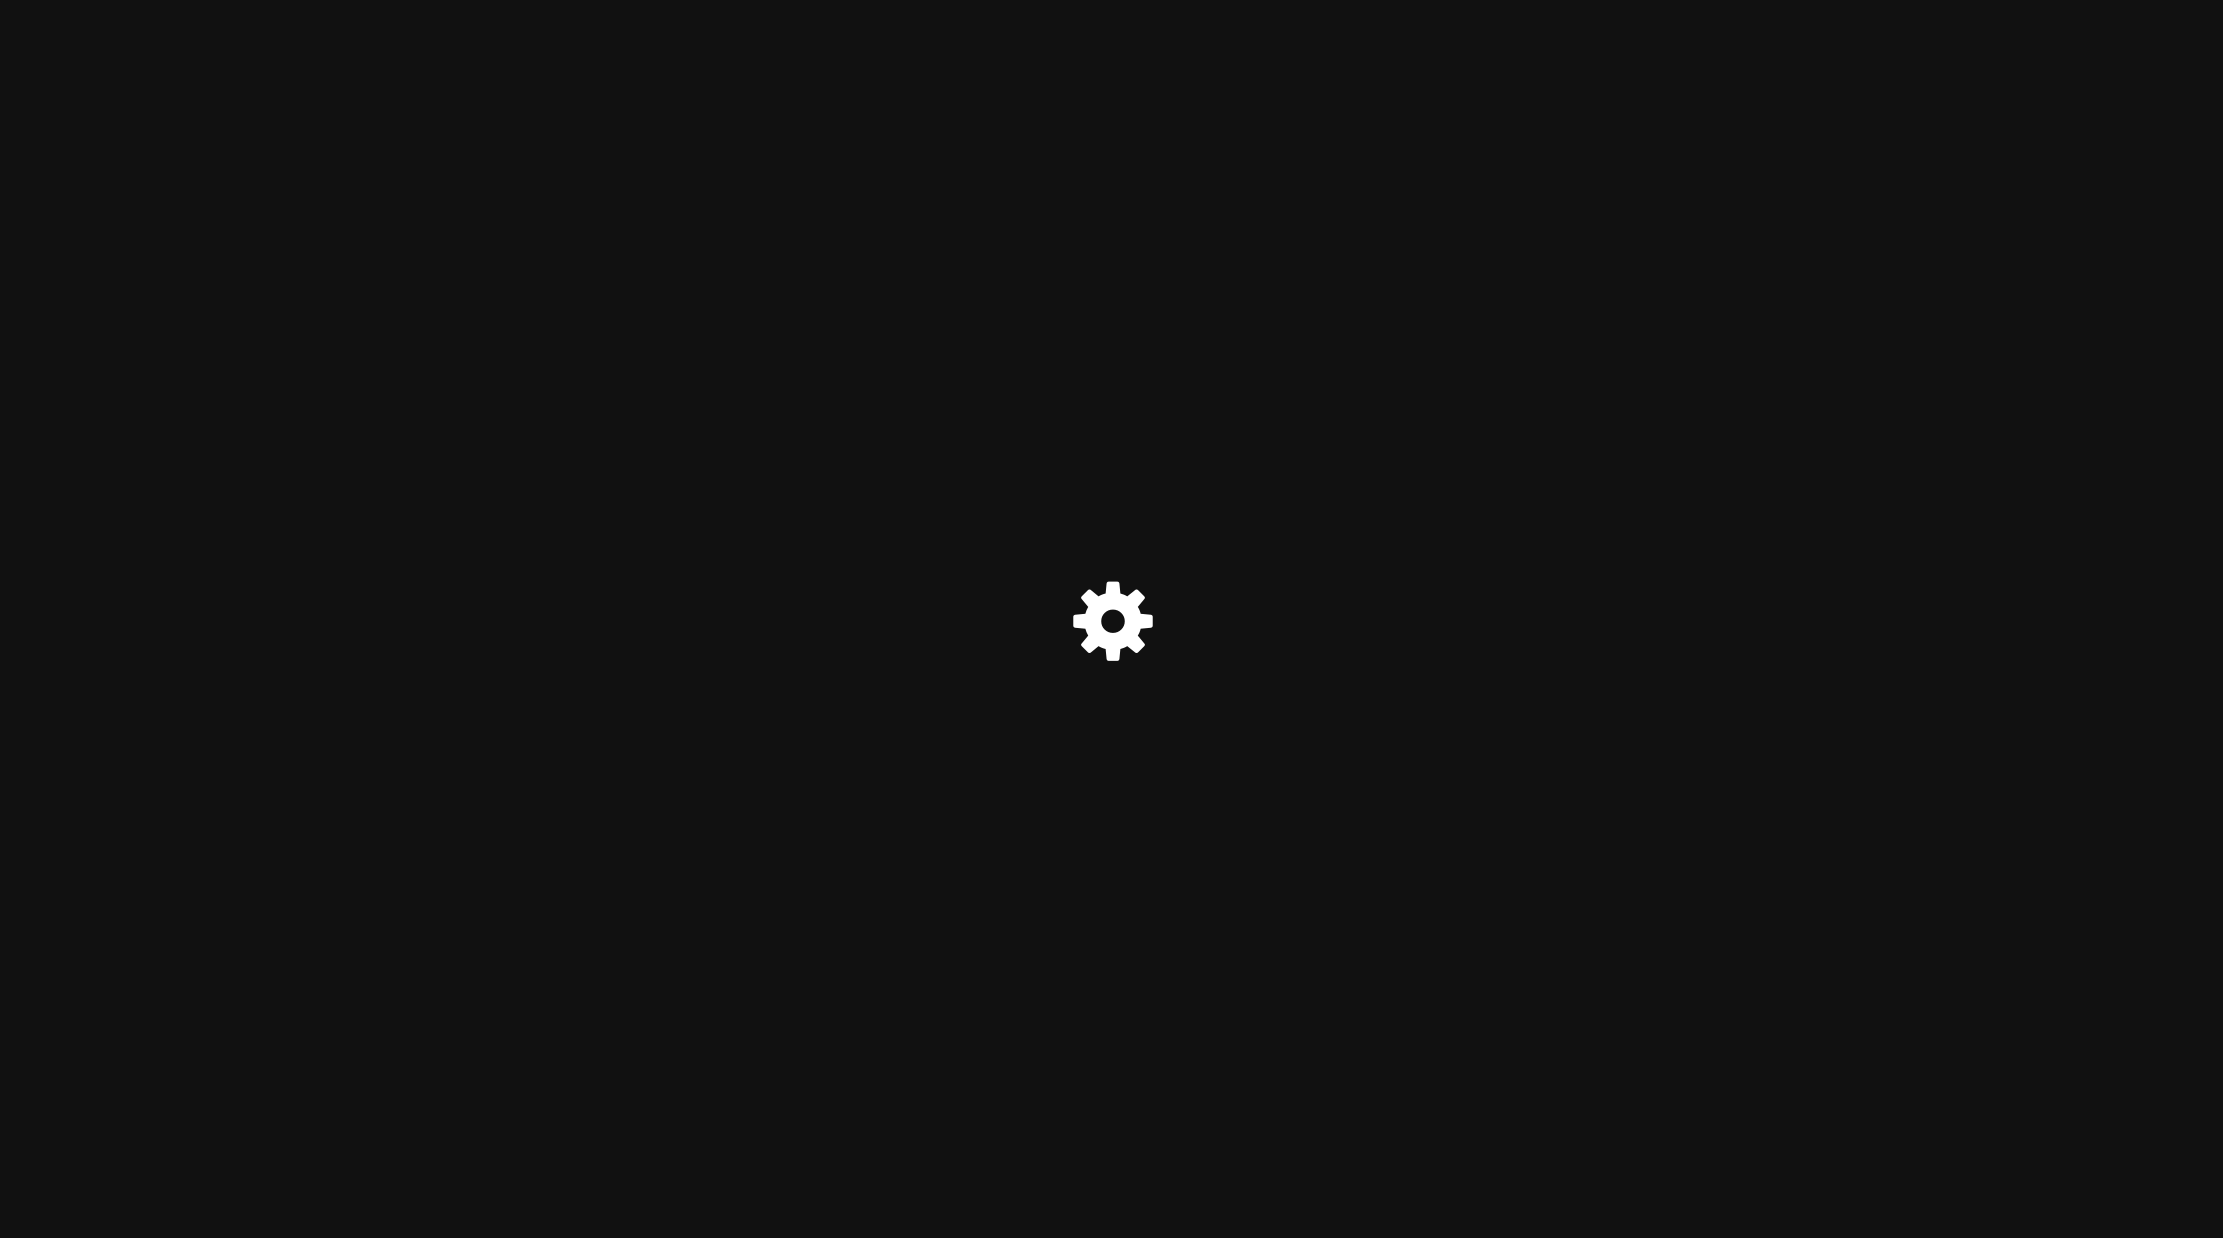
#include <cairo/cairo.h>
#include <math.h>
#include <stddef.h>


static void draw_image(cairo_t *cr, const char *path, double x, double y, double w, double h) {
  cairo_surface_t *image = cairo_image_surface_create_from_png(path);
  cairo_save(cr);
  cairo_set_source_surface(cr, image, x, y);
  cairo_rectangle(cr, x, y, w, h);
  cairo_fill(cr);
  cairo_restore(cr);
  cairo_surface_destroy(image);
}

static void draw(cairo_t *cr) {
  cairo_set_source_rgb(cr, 17 / 255.0, 17 / 255.0, 17 / 255.0);
  cairo_paint(cr);
  draw_image(cr, "images/1.png", 1073, 581, 80, 80);
}

int main(void) {
  cairo_surface_t *surface = cairo_image_surface_create(CAIRO_FORMAT_RGB24, 2223, 1238);
  cairo_t *cr = cairo_create(surface);
  cairo_font_options_t *options = cairo_font_options_create();
  cairo_font_options_set_hint_metrics(options, CAIRO_HINT_METRICS_OFF);
  cairo_font_options_set_hint_style(options, CAIRO_HINT_STYLE_NONE);
  cairo_set_font_options(cr, options);
  cairo_set_miter_limit(cr, 4);
  draw(cr);
  cairo_surface_write_to_png(surface, "out.png");
  cairo_font_options_destroy(options);
  cairo_destroy(cr);
  cairo_surface_destroy(surface);
  return 0;
}
